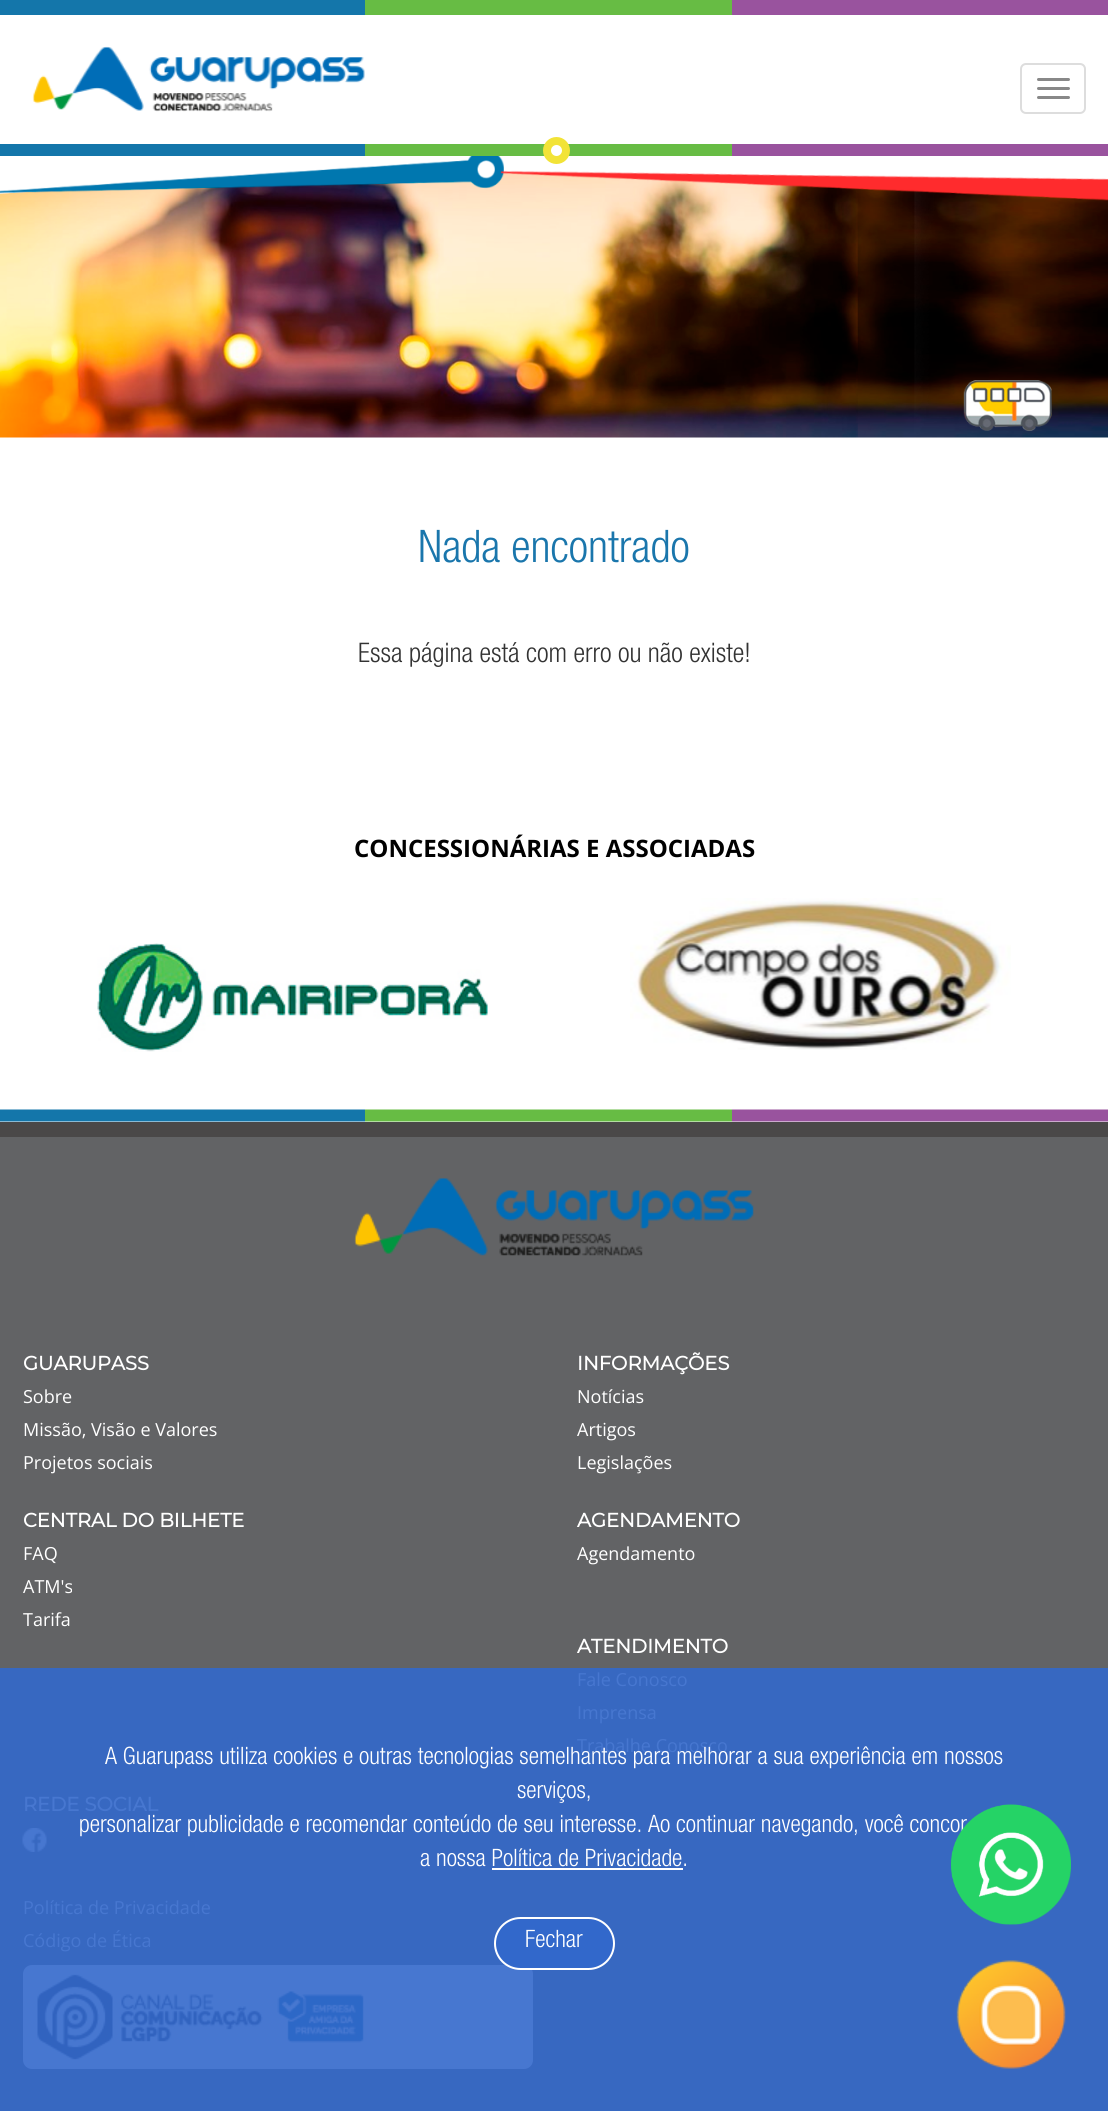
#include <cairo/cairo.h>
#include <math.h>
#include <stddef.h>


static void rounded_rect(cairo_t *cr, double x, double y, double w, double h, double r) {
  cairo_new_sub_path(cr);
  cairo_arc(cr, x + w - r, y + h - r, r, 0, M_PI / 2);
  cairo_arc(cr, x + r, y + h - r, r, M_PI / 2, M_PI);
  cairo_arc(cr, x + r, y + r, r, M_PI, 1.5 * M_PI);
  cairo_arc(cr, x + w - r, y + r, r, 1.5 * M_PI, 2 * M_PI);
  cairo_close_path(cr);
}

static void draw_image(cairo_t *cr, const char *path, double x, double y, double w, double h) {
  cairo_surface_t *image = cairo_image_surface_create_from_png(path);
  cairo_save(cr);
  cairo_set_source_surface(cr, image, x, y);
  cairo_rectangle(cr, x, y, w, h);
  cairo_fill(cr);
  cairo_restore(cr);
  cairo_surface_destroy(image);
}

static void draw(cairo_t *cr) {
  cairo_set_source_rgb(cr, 1, 1, 1);
  cairo_paint(cr);
  draw_image(cr, "images/1.png", 0, 0, 1108, 156);
  draw_image(cr, "images/2.png", 32, 46, 333, 66);
  rounded_rect(cr, 1021, 64, 64, 49, 5);
  cairo_set_source_rgb(cr, 221 / 255.0, 221 / 255.0, 221 / 255.0);
  cairo_stroke(cr);
  cairo_set_source_rgb(cr, 136 / 255.0, 136 / 255.0, 136 / 255.0);
  rounded_rect(cr, 1037, 78, 33, 3, 1.5);
  cairo_fill(cr);
  rounded_rect(cr, 1037, 87, 33, 3, 1.5);
  cairo_fill(cr);
  rounded_rect(cr, 1037, 96, 33, 3, 1.5);
  cairo_fill(cr);
  draw_image(cr, "images/3.png", 0, 156, 1108, 282);
  cairo_set_source_rgb(cr, 1, 1, 1);
  cairo_arc(cr, 556.5, 150.5, 9.5, 0, 2 * M_PI);
  cairo_fill_preserve(cr);
  cairo_set_source_rgb(cr, 242 / 255.0, 227 / 255.0, 55 / 255.0);
  cairo_set_line_width(cr, 8);
  cairo_stroke(cr);
  draw_image(cr, "images/4.png", 97, 943, 391, 109);
  draw_image(cr, "images/5.png", 630, 898, 381, 152);
  cairo_set_source_rgb(cr, 98 / 255.0, 99 / 255.0, 101 / 255.0);
  cairo_rectangle(cr, 0, 1137, 1108, 531);
  cairo_fill(cr);
  cairo_set_source_rgb(cr, 55 / 255.0, 104 / 255.0, 193 / 255.0);
  cairo_rectangle(cr, 0, 1668, 1108, 443);
  cairo_fill(cr);
  cairo_set_source_rgb(cr, 74 / 255.0, 72 / 255.0, 72 / 255.0);
  cairo_rectangle(cr, 0, 1122, 1108, 15);
  cairo_fill(cr);
  draw_image(cr, "images/6.png", 0, 1109, 1108, 13);
  draw_image(cr, "images/7.png", 354, 1178, 400, 78);
  draw_image(cr, "images/8.png", 22, 1828, 25, 24);
  cairo_set_source_rgb(cr, 71 / 255.0, 119 / 255.0, 208 / 255.0);
  rounded_rect(cr, 23, 1965, 510, 104, 9);
  cairo_fill(cr);
  draw_image(cr, "images/9.png", 37, 1974, 327, 86);
  cairo_set_source_rgb(cr, 1, 1, 1);
  cairo_rectangle(cr, 492, 1868, 191, 2);
  cairo_fill(cr);
  cairo_set_source_rgb(cr, 50 / 255.0, 104 / 255.0, 203 / 255.0);
  rounded_rect(cr, 495, 1918, 119, 51, 25.5);
  cairo_fill_preserve(cr);
  cairo_set_source_rgb(cr, 1, 1, 1);
  cairo_set_line_width(cr, 2);
  cairo_stroke(cr);
  draw_image(cr, "images/11.png", 956, 1960, 110, 109);
  cairo_select_font_face(cr, "Helvetica Neue Light", CAIRO_FONT_SLANT_NORMAL, CAIRO_FONT_WEIGHT_NORMAL);
  cairo_set_font_size(cr, 45);
  cairo_set_source_rgb(cr, 26 / 255.0, 118 / 255.0, 172 / 255.0);
  cairo_move_to(cr, 418, 562);
  cairo_show_text(cr, "Nada encontrado");
  cairo_set_font_size(cr, 27);
  cairo_set_source_rgb(cr, 51 / 255.0, 51 / 255.0, 51 / 255.0);
  cairo_move_to(cr, 358, 662);
  cairo_show_text(cr, "Essa página está com erro ou não existe!");
  cairo_select_font_face(cr, "Open Sans", CAIRO_FONT_SLANT_NORMAL, CAIRO_FONT_WEIGHT_BOLD);
  cairo_set_font_size(cr, 24);
  cairo_set_source_rgb(cr, 0, 0, 0);
  cairo_move_to(cr, 354, 857);
  cairo_show_text(cr, "CONCESSIONÁRIAS E ASSOCIADAS");
  cairo_select_font_face(cr, "Montserrat", CAIRO_FONT_SLANT_NORMAL, CAIRO_FONT_WEIGHT_BOLD);
  cairo_set_font_size(cr, 19.5);
  cairo_set_source_rgb(cr, 1, 1, 1);
  cairo_move_to(cr, 23, 1370);
  cairo_show_text(cr, "GUARUPASS");
  cairo_select_font_face(cr, "Open Sans", CAIRO_FONT_SLANT_NORMAL, CAIRO_FONT_WEIGHT_NORMAL);
  cairo_set_font_size(cr, 18);
  cairo_move_to(cr, 23, 1403);
  cairo_show_text(cr, "Sobre");
  cairo_move_to(cr, 23, 1436);
  cairo_show_text(cr, "Missão, Visão e Valores");
  cairo_move_to(cr, 23, 1469);
  cairo_show_text(cr, "Projetos sociais");
  cairo_select_font_face(cr, "Montserrat", CAIRO_FONT_SLANT_NORMAL, CAIRO_FONT_WEIGHT_BOLD);
  cairo_set_font_size(cr, 19.5);
  cairo_move_to(cr, 577, 1370);
  cairo_show_text(cr, "INFORMAÇÕES");
  cairo_select_font_face(cr, "Open Sans", CAIRO_FONT_SLANT_NORMAL, CAIRO_FONT_WEIGHT_NORMAL);
  cairo_set_font_size(cr, 18);
  cairo_move_to(cr, 577, 1403);
  cairo_show_text(cr, "Notícias");
  cairo_move_to(cr, 577, 1436);
  cairo_show_text(cr, "Artigos");
  cairo_move_to(cr, 577, 1469);
  cairo_show_text(cr, "Legislações");
  cairo_select_font_face(cr, "Montserrat", CAIRO_FONT_SLANT_NORMAL, CAIRO_FONT_WEIGHT_BOLD);
  cairo_set_font_size(cr, 19.5);
  cairo_move_to(cr, 23, 1527);
  cairo_show_text(cr, "CENTRAL DO BILHETE");
  cairo_select_font_face(cr, "Open Sans", CAIRO_FONT_SLANT_NORMAL, CAIRO_FONT_WEIGHT_NORMAL);
  cairo_set_font_size(cr, 18);
  cairo_move_to(cr, 23, 1560);
  cairo_show_text(cr, "FAQ");
  cairo_move_to(cr, 23, 1593);
  cairo_show_text(cr, "ATM's");
  cairo_move_to(cr, 23, 1626);
  cairo_show_text(cr, "Tarifa");
  cairo_select_font_face(cr, "Montserrat", CAIRO_FONT_SLANT_NORMAL, CAIRO_FONT_WEIGHT_BOLD);
  cairo_set_font_size(cr, 19.5);
  cairo_move_to(cr, 577, 1527);
  cairo_show_text(cr, "AGENDAMENTO");
  cairo_select_font_face(cr, "Open Sans", CAIRO_FONT_SLANT_NORMAL, CAIRO_FONT_WEIGHT_NORMAL);
  cairo_set_font_size(cr, 18);
  cairo_move_to(cr, 577, 1560);
  cairo_show_text(cr, "Agendamento");
  cairo_select_font_face(cr, "Montserrat", CAIRO_FONT_SLANT_NORMAL, CAIRO_FONT_WEIGHT_BOLD);
  cairo_set_font_size(cr, 19.5);
  cairo_move_to(cr, 577, 1653);
  cairo_show_text(cr, "ATENDIMENTO");
  cairo_select_font_face(cr, "Open Sans", CAIRO_FONT_SLANT_NORMAL, CAIRO_FONT_WEIGHT_NORMAL);
  cairo_set_font_size(cr, 18);
  cairo_set_source_rgb(cr, 71 / 255.0, 119 / 255.0, 208 / 255.0);
  cairo_move_to(cr, 577, 1686);
  cairo_show_text(cr, "Fale Conosco");
  cairo_move_to(cr, 577, 1719);
  cairo_show_text(cr, "Imprensa");
  cairo_move_to(cr, 577, 1752);
  cairo_show_text(cr, "Trabalhe Conosco");
  cairo_select_font_face(cr, "Montserrat", CAIRO_FONT_SLANT_NORMAL, CAIRO_FONT_WEIGHT_BOLD);
  cairo_set_font_size(cr, 19.5);
  cairo_move_to(cr, 23, 1811);
  cairo_show_text(cr, "REDE SOCIAL");
  cairo_select_font_face(cr, "Open Sans", CAIRO_FONT_SLANT_NORMAL, CAIRO_FONT_WEIGHT_NORMAL);
  cairo_set_font_size(cr, 18);
  cairo_move_to(cr, 23, 1914);
  cairo_show_text(cr, "Política de Privacidade");
  cairo_move_to(cr, 23, 1947);
  cairo_show_text(cr, "Código de Ética");
  cairo_select_font_face(cr, "Helvetica Neue Light", CAIRO_FONT_SLANT_NORMAL, CAIRO_FONT_WEIGHT_NORMAL);
  cairo_set_font_size(cr, 24);
  cairo_set_source_rgb(cr, 1, 1, 1);
  cairo_move_to(cr, 105, 1764);
  cairo_show_text(cr, "A Guarupass utiliza cookies e outras tecnologias semelhantes para melhorar a sua experiência em nossos");
  cairo_move_to(cr, 517, 1798);
  cairo_show_text(cr, "serviços,");
  cairo_move_to(cr, 79, 1832);
  cairo_show_text(cr, "personalizar publicidade e recomendar conteúdo de seu interesse. Ao continuar navegando, você concor");
  cairo_move_to(cr, 420, 1866);
  cairo_show_text(cr, "a nossa Política de Privacidade.");
  cairo_move_to(cr, 525, 1947);
  cairo_show_text(cr, "Fechar");
  draw_image(cr, "images/10.png", 951, 1804, 120, 121);
}

int main(void) {
  cairo_surface_t *surface = cairo_image_surface_create(CAIRO_FORMAT_RGB24, 1108, 2111);
  cairo_t *cr = cairo_create(surface);
  cairo_font_options_t *options = cairo_font_options_create();
  cairo_font_options_set_hint_metrics(options, CAIRO_HINT_METRICS_OFF);
  cairo_font_options_set_hint_style(options, CAIRO_HINT_STYLE_NONE);
  cairo_set_font_options(cr, options);
  cairo_set_miter_limit(cr, 4);
  draw(cr);
  cairo_surface_write_to_png(surface, "out.png");
  cairo_font_options_destroy(options);
  cairo_destroy(cr);
  cairo_surface_destroy(surface);
  return 0;
}
